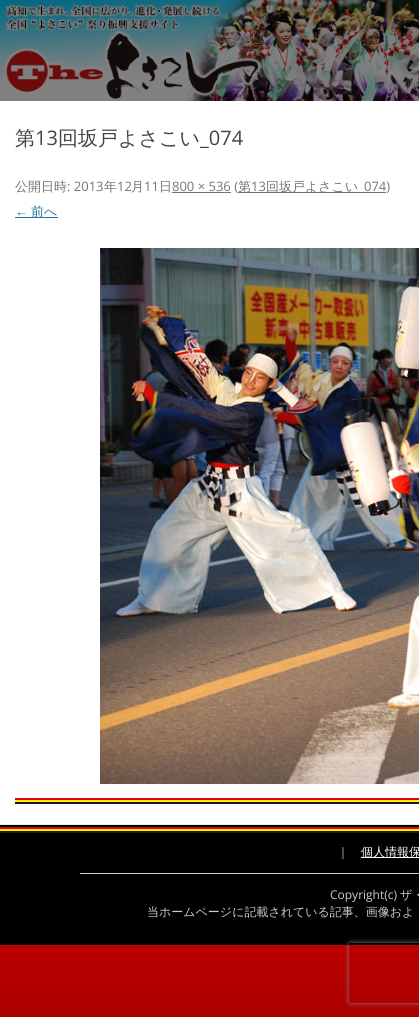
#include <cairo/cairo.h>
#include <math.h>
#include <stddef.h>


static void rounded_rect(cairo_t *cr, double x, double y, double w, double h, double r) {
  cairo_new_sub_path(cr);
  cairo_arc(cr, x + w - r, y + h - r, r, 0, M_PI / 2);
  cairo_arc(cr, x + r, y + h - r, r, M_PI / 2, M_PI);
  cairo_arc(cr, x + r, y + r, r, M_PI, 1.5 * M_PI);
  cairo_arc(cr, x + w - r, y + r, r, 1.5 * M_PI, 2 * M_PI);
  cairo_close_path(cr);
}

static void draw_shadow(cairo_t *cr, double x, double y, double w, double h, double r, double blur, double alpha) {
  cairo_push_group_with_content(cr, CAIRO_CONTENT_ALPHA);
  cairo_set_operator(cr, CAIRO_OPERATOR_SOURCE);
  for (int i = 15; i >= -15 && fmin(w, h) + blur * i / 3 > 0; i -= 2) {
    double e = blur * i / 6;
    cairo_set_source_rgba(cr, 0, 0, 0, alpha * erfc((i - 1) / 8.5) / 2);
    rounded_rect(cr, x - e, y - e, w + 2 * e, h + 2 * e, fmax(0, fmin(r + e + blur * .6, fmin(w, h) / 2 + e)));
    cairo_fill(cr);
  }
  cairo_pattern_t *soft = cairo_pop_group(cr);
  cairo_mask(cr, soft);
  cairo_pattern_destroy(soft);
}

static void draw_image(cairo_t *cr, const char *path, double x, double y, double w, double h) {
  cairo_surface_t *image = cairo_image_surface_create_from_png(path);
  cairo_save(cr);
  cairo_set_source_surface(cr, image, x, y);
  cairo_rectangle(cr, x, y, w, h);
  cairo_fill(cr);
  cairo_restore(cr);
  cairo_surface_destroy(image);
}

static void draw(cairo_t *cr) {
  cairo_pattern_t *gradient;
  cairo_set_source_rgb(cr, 1, 1, 1);
  cairo_paint(cr);
  gradient = cairo_pattern_create_linear(209, 945, 210, 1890);
  cairo_pattern_add_color_stop_rgba(gradient, 0, 187 / 255.0, 0, 0, 1);
  cairo_pattern_add_color_stop_rgba(gradient, 0.5, 85 / 255.0, 0, 0, 1);
  cairo_set_source(cr, gradient);
  cairo_pattern_destroy(gradient);
  cairo_rectangle(cr, 0, 945, 419, 72);
  cairo_fill(cr);
  cairo_set_source_rgb(cr, 0, 0, 0);
  cairo_rectangle(cr, 0, 0, 419, 101);
  cairo_fill(cr);
  draw_image(cr, "images/1.png", 0, 0, 419, 101);
  draw_image(cr, "images/2.png", 15, 798, 404, 6);
  cairo_set_source_rgb(cr, 117 / 255.0, 117 / 255.0, 117 / 255.0);
  cairo_rectangle(cr, 172, 192, 59, 1);
  cairo_fill(cr);
  cairo_rectangle(cr, 238, 192, 148, 1);
  cairo_fill(cr);
  cairo_set_source_rgb(cr, 33 / 255.0, 117 / 255.0, 155 / 255.0);
  cairo_rectangle(cr, 15, 217, 43, 1);
  cairo_fill(cr);
  draw_image(cr, "images/3.png", 100, 248, 319, 536);
  cairo_set_source_rgb(cr, 0, 0, 0);
  cairo_rectangle(cr, 0, 825, 419, 120);
  cairo_fill(cr);
  cairo_set_source_rgb(cr, 237 / 255.0, 237 / 255.0, 237 / 255.0);
  cairo_rectangle(cr, 0, 824, 419, 1);
  cairo_fill(cr);
  draw_image(cr, "images/4.png", 0, 827, 419, 6);
  cairo_set_source_rgb(cr, 204 / 255.0, 204 / 255.0, 204 / 255.0);
  cairo_rectangle(cr, 80, 873, 339, 1);
  cairo_fill(cr);
  cairo_set_source_rgb(cr, 1, 1, 1);
  cairo_rectangle(cr, 361, 857, 58, 1);
  cairo_fill(cr);
  cairo_save(cr);
  cairo_set_fill_rule(cr, CAIRO_FILL_RULE_EVEN_ODD);
  cairo_new_path(cr);
  cairo_move_to(cr, 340, 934);
  cairo_line_to(cr, 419, 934);
  cairo_line_to(cr, 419, 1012);
  cairo_line_to(cr, 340, 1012);
  cairo_close_path(cr);
  cairo_move_to(cr, 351, 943);
  cairo_line_to(cr, 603, 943);
  cairo_curve_to(cr, 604, 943, 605, 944, 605, 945);
  cairo_line_to(cr, 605, 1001);
  cairo_curve_to(cr, 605, 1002, 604, 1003, 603, 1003);
  cairo_line_to(cr, 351, 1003);
  cairo_curve_to(cr, 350, 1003, 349, 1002, 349, 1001);
  cairo_line_to(cr, 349, 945);
  cairo_curve_to(cr, 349, 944, 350, 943, 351, 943);
  cairo_close_path(cr);
  cairo_clip(cr);
  cairo_set_source_rgb(cr, 128 / 255.0, 128 / 255.0, 128 / 255.0);
  draw_shadow(cr, 349, 943, 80, 60, 2, 2.5, 1);
  cairo_restore(cr);
  cairo_select_font_face(cr, "WenQuanYi Zen Hei Medium", CAIRO_FONT_SLANT_NORMAL, CAIRO_FONT_WEIGHT_NORMAL);
  cairo_set_font_size(cr, 20);
  cairo_set_source_rgb(cr, 68 / 255.0, 68 / 255.0, 68 / 255.0);
  cairo_move_to(cr, 15, 145);
  cairo_show_text(cr, "第");
  cairo_select_font_face(cr, "Open Sans", CAIRO_FONT_SLANT_NORMAL, CAIRO_FONT_WEIGHT_NORMAL);
  cairo_move_to(cr, 35, 145);
  cairo_show_text(cr, "13");
  cairo_select_font_face(cr, "WenQuanYi Zen Hei Medium", CAIRO_FONT_SLANT_NORMAL, CAIRO_FONT_WEIGHT_NORMAL);
  cairo_move_to(cr, 58, 145);
  cairo_show_text(cr, "回坂戸よさこい");
  cairo_select_font_face(cr, "Open Sans", CAIRO_FONT_SLANT_NORMAL, CAIRO_FONT_WEIGHT_NORMAL);
  cairo_move_to(cr, 200, 145);
  cairo_show_text(cr, "_074");
  cairo_select_font_face(cr, "WenQuanYi Zen Hei Medium", CAIRO_FONT_SLANT_NORMAL, CAIRO_FONT_WEIGHT_NORMAL);
  cairo_set_font_size(cr, 13);
  cairo_set_source_rgb(cr, 117 / 255.0, 117 / 255.0, 117 / 255.0);
  cairo_move_to(cr, 15, 191);
  cairo_show_text(cr, "公開日時");
  cairo_select_font_face(cr, "Open Sans", CAIRO_FONT_SLANT_NORMAL, CAIRO_FONT_WEIGHT_NORMAL);
  cairo_move_to(cr, 67, 191);
  cairo_show_text(cr, ": 2013");
  cairo_select_font_face(cr, "WenQuanYi Zen Hei Medium", CAIRO_FONT_SLANT_NORMAL, CAIRO_FONT_WEIGHT_NORMAL);
  cairo_move_to(cr, 104, 191);
  cairo_show_text(cr, "年");
  cairo_select_font_face(cr, "Open Sans", CAIRO_FONT_SLANT_NORMAL, CAIRO_FONT_WEIGHT_NORMAL);
  cairo_move_to(cr, 117, 191);
  cairo_show_text(cr, "12");
  cairo_select_font_face(cr, "WenQuanYi Zen Hei Medium", CAIRO_FONT_SLANT_NORMAL, CAIRO_FONT_WEIGHT_NORMAL);
  cairo_move_to(cr, 131, 191);
  cairo_show_text(cr, "月");
  cairo_select_font_face(cr, "Open Sans", CAIRO_FONT_SLANT_NORMAL, CAIRO_FONT_WEIGHT_NORMAL);
  cairo_move_to(cr, 144, 191);
  cairo_show_text(cr, "11");
  cairo_select_font_face(cr, "WenQuanYi Zen Hei Medium", CAIRO_FONT_SLANT_NORMAL, CAIRO_FONT_WEIGHT_NORMAL);
  cairo_move_to(cr, 159, 191);
  cairo_show_text(cr, "日");
  cairo_select_font_face(cr, "Open Sans", CAIRO_FONT_SLANT_NORMAL, CAIRO_FONT_WEIGHT_NORMAL);
  cairo_move_to(cr, 172, 191);
  cairo_show_text(cr, "800 × 536 (");
  cairo_select_font_face(cr, "WenQuanYi Zen Hei Medium", CAIRO_FONT_SLANT_NORMAL, CAIRO_FONT_WEIGHT_NORMAL);
  cairo_move_to(cr, 238, 191);
  cairo_show_text(cr, "第");
  cairo_select_font_face(cr, "Open Sans", CAIRO_FONT_SLANT_NORMAL, CAIRO_FONT_WEIGHT_NORMAL);
  cairo_move_to(cr, 251, 191);
  cairo_show_text(cr, "13");
  cairo_select_font_face(cr, "WenQuanYi Zen Hei Medium", CAIRO_FONT_SLANT_NORMAL, CAIRO_FONT_WEIGHT_NORMAL);
  cairo_move_to(cr, 266, 191);
  cairo_show_text(cr, "回坂戸よさこい");
  cairo_select_font_face(cr, "Open Sans", CAIRO_FONT_SLANT_NORMAL, CAIRO_FONT_WEIGHT_NORMAL);
  cairo_move_to(cr, 364, 191);
  cairo_show_text(cr, "074)");
  cairo_select_font_face(cr, "Liberation Sans", CAIRO_FONT_SLANT_NORMAL, CAIRO_FONT_WEIGHT_NORMAL);
  cairo_set_source_rgb(cr, 33 / 255.0, 117 / 255.0, 155 / 255.0);
  cairo_move_to(cr, 15, 216);
  cairo_show_text(cr, "←");
  cairo_select_font_face(cr, "WenQuanYi Zen Hei Medium", CAIRO_FONT_SLANT_NORMAL, CAIRO_FONT_WEIGHT_NORMAL);
  cairo_move_to(cr, 31, 216);
  cairo_show_text(cr, "前へ");
  cairo_set_font_size(cr, 12);
  cairo_set_source_rgb(cr, 204 / 255.0, 204 / 255.0, 204 / 255.0);
  cairo_move_to(cr, 337, 856);
  cairo_show_text(cr, "｜");
  cairo_set_source_rgb(cr, 1, 1, 1);
  cairo_move_to(cr, 361, 856);
  cairo_show_text(cr, "個人情報保");
  cairo_select_font_face(cr, "Open Sans", CAIRO_FONT_SLANT_NORMAL, CAIRO_FONT_WEIGHT_NORMAL);
  cairo_set_source_rgb(cr, 204 / 255.0, 204 / 255.0, 204 / 255.0);
  cairo_move_to(cr, 330, 899);
  cairo_show_text(cr, "Copyright(c)");
  cairo_select_font_face(cr, "WenQuanYi Zen Hei Medium", CAIRO_FONT_SLANT_NORMAL, CAIRO_FONT_WEIGHT_NORMAL);
  cairo_move_to(cr, 400, 899);
  cairo_show_text(cr, "ザ・");
  cairo_move_to(cr, 147, 916);
  cairo_show_text(cr, "当ホームページに記載されている記事、画像およ");
}

int main(void) {
  cairo_surface_t *surface = cairo_image_surface_create(CAIRO_FORMAT_RGB24, 419, 1017);
  cairo_t *cr = cairo_create(surface);
  cairo_font_options_t *options = cairo_font_options_create();
  cairo_font_options_set_hint_metrics(options, CAIRO_HINT_METRICS_OFF);
  cairo_font_options_set_hint_style(options, CAIRO_HINT_STYLE_NONE);
  cairo_set_font_options(cr, options);
  cairo_set_miter_limit(cr, 4);
  draw(cr);
  cairo_surface_write_to_png(surface, "out.png");
  cairo_font_options_destroy(options);
  cairo_destroy(cr);
  cairo_surface_destroy(surface);
  return 0;
}
